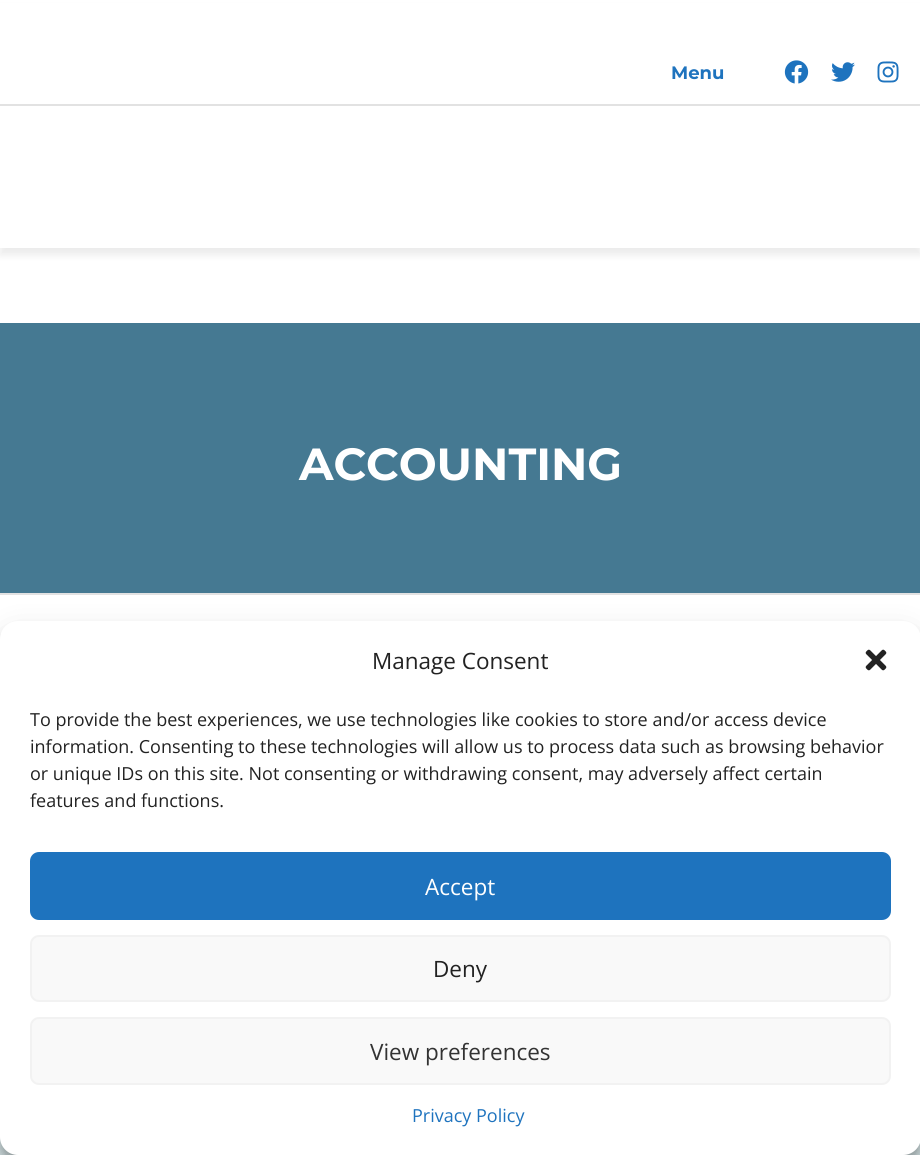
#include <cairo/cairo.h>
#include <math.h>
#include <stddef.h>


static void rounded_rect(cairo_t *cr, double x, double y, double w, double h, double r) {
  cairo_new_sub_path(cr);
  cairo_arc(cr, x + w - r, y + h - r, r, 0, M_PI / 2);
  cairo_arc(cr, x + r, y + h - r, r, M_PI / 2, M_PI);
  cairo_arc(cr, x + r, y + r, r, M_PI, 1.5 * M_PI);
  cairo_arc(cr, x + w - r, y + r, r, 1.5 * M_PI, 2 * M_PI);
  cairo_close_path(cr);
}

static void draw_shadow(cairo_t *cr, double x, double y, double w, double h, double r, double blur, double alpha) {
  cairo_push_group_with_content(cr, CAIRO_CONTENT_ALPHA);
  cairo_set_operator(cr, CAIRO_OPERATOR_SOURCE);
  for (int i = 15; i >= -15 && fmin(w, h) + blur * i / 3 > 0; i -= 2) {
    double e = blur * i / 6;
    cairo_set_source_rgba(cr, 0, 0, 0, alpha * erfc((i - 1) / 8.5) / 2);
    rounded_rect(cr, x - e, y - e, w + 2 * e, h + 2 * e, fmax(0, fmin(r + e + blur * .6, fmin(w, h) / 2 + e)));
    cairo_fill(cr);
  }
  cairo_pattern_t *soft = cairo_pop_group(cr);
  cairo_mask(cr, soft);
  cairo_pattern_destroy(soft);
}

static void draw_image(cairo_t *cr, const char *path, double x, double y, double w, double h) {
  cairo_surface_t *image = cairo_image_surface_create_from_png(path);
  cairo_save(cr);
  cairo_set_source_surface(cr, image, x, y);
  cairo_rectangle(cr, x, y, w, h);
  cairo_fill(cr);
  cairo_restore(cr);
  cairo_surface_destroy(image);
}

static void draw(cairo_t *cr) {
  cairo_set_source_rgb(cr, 1, 1, 1);
  cairo_paint(cr);
  cairo_set_source_rgb(cr, 0, 0, 0);
  draw_shadow(cr, 0, 8, 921, 247, 0, 4, 0.08);
  cairo_set_source_rgb(cr, 1, 1, 1);
  cairo_rectangle(cr, 0, 3, 920, 245);
  cairo_fill(cr);
  cairo_set_source_rgb(cr, 226 / 255.0, 226 / 255.0, 226 / 255.0);
  cairo_rectangle(cr, 0, 104, 920, 2);
  cairo_fill(cr);
  draw_image(cr, "images/1.png", 784, 60, 25, 24);
  draw_image(cr, "images/2.png", 831, 62, 24, 20);
  draw_image(cr, "images/3.png", 877, 61, 22, 22);
  cairo_set_source_rgb(cr, 69 / 255.0, 121 / 255.0, 146 / 255.0);
  cairo_rectangle(cr, 0, 323, 920, 270);
  cairo_fill(cr);
  cairo_set_source_rgb(cr, 226 / 255.0, 226 / 255.0, 226 / 255.0);
  cairo_rectangle(cr, 0, 593, 920, 2);
  cairo_fill(cr);
  cairo_set_source_rgb(cr, 221 / 255.0, 236 / 255.0, 238 / 255.0);
  cairo_rectangle(cr, 0, 1137, 920, 18);
  cairo_fill(cr);
  cairo_set_source_rgb(cr, 0, 0, 0);
  draw_shadow(cr, 0, 630, 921, 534, 18, 4.5, 0.23);
  draw_shadow(cr, 0, 636, 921, 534, 18, 15, 0.19);
  cairo_set_source_rgb(cr, 1, 1, 1);
  rounded_rect(cr, 0, 621, 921, 534, 18);
  cairo_fill(cr);
  draw_image(cr, "images/4.png", 865, 649, 22, 22);
  cairo_set_source_rgb(cr, 30 / 255.0, 115 / 255.0, 190 / 255.0);
  rounded_rect(cr, 31, 853, 859, 66, 8);
  cairo_fill_preserve(cr);
  cairo_stroke(cr);
  cairo_set_source_rgb(cr, 249 / 255.0, 249 / 255.0, 249 / 255.0);
  rounded_rect(cr, 31, 936, 859, 65, 8);
  cairo_fill_preserve(cr);
  cairo_set_source_rgb(cr, 242 / 255.0, 242 / 255.0, 242 / 255.0);
  cairo_stroke(cr);
  cairo_set_source_rgb(cr, 249 / 255.0, 249 / 255.0, 249 / 255.0);
  rounded_rect(cr, 31, 1018, 859, 66, 8);
  cairo_fill_preserve(cr);
  cairo_set_source_rgb(cr, 242 / 255.0, 242 / 255.0, 242 / 255.0);
  cairo_stroke(cr);
  cairo_select_font_face(cr, "Montserrat Thin", CAIRO_FONT_SLANT_NORMAL, CAIRO_FONT_WEIGHT_NORMAL);
  cairo_set_font_size(cr, 18);
  cairo_set_source_rgb(cr, 30 / 255.0, 115 / 255.0, 190 / 255.0);
  cairo_move_to(cr, 671, 79);
  cairo_show_text(cr, "Menu");
  cairo_set_font_size(cr, 45);
  cairo_set_source_rgb(cr, 1, 1, 1);
  cairo_move_to(cr, 299, 480);
  cairo_show_text(cr, "ACCOUNTING");
  cairo_select_font_face(cr, "Open Sans", CAIRO_FONT_SLANT_NORMAL, CAIRO_FONT_WEIGHT_NORMAL);
  cairo_set_font_size(cr, 22.5);
  cairo_set_source_rgb(cr, 34 / 255.0, 34 / 255.0, 34 / 255.0);
  cairo_move_to(cr, 372, 669);
  cairo_show_text(cr, "Manage Consent");
  cairo_set_font_size(cr, 18);
  cairo_move_to(cr, 30, 726);
  cairo_show_text(cr, "To provide the best experiences, we use technologies like cookies to store and/or access device");
  cairo_move_to(cr, 30, 753);
  cairo_show_text(cr, "information. Consenting to these technologies will allow us to process data such as browsing behavior");
  cairo_move_to(cr, 30, 780);
  cairo_show_text(cr, "or unique IDs on this site. Not consenting or withdrawing consent, may adversely affect certain");
  cairo_move_to(cr, 30, 807);
  cairo_show_text(cr, "features and functions.");
  cairo_set_font_size(cr, 22.5);
  cairo_set_source_rgb(cr, 1, 1, 1);
  cairo_move_to(cr, 425, 895);
  cairo_show_text(cr, "Accept");
  cairo_set_source_rgb(cr, 34 / 255.0, 34 / 255.0, 34 / 255.0);
  cairo_move_to(cr, 433, 977);
  cairo_show_text(cr, "Deny");
  cairo_set_source_rgb(cr, 51 / 255.0, 51 / 255.0, 51 / 255.0);
  cairo_move_to(cr, 370, 1060);
  cairo_show_text(cr, "View preferences");
  cairo_set_font_size(cr, 18);
  cairo_set_source_rgb(cr, 30 / 255.0, 115 / 255.0, 190 / 255.0);
  cairo_move_to(cr, 412, 1122);
  cairo_show_text(cr, "Privacy Policy");
}

int main(void) {
  cairo_surface_t *surface = cairo_image_surface_create(CAIRO_FORMAT_RGB24, 920, 1155);
  cairo_t *cr = cairo_create(surface);
  cairo_font_options_t *options = cairo_font_options_create();
  cairo_font_options_set_hint_metrics(options, CAIRO_HINT_METRICS_OFF);
  cairo_font_options_set_hint_style(options, CAIRO_HINT_STYLE_NONE);
  cairo_set_font_options(cr, options);
  cairo_set_miter_limit(cr, 4);
  draw(cr);
  cairo_surface_write_to_png(surface, "out.png");
  cairo_font_options_destroy(options);
  cairo_destroy(cr);
  cairo_surface_destroy(surface);
  return 0;
}
